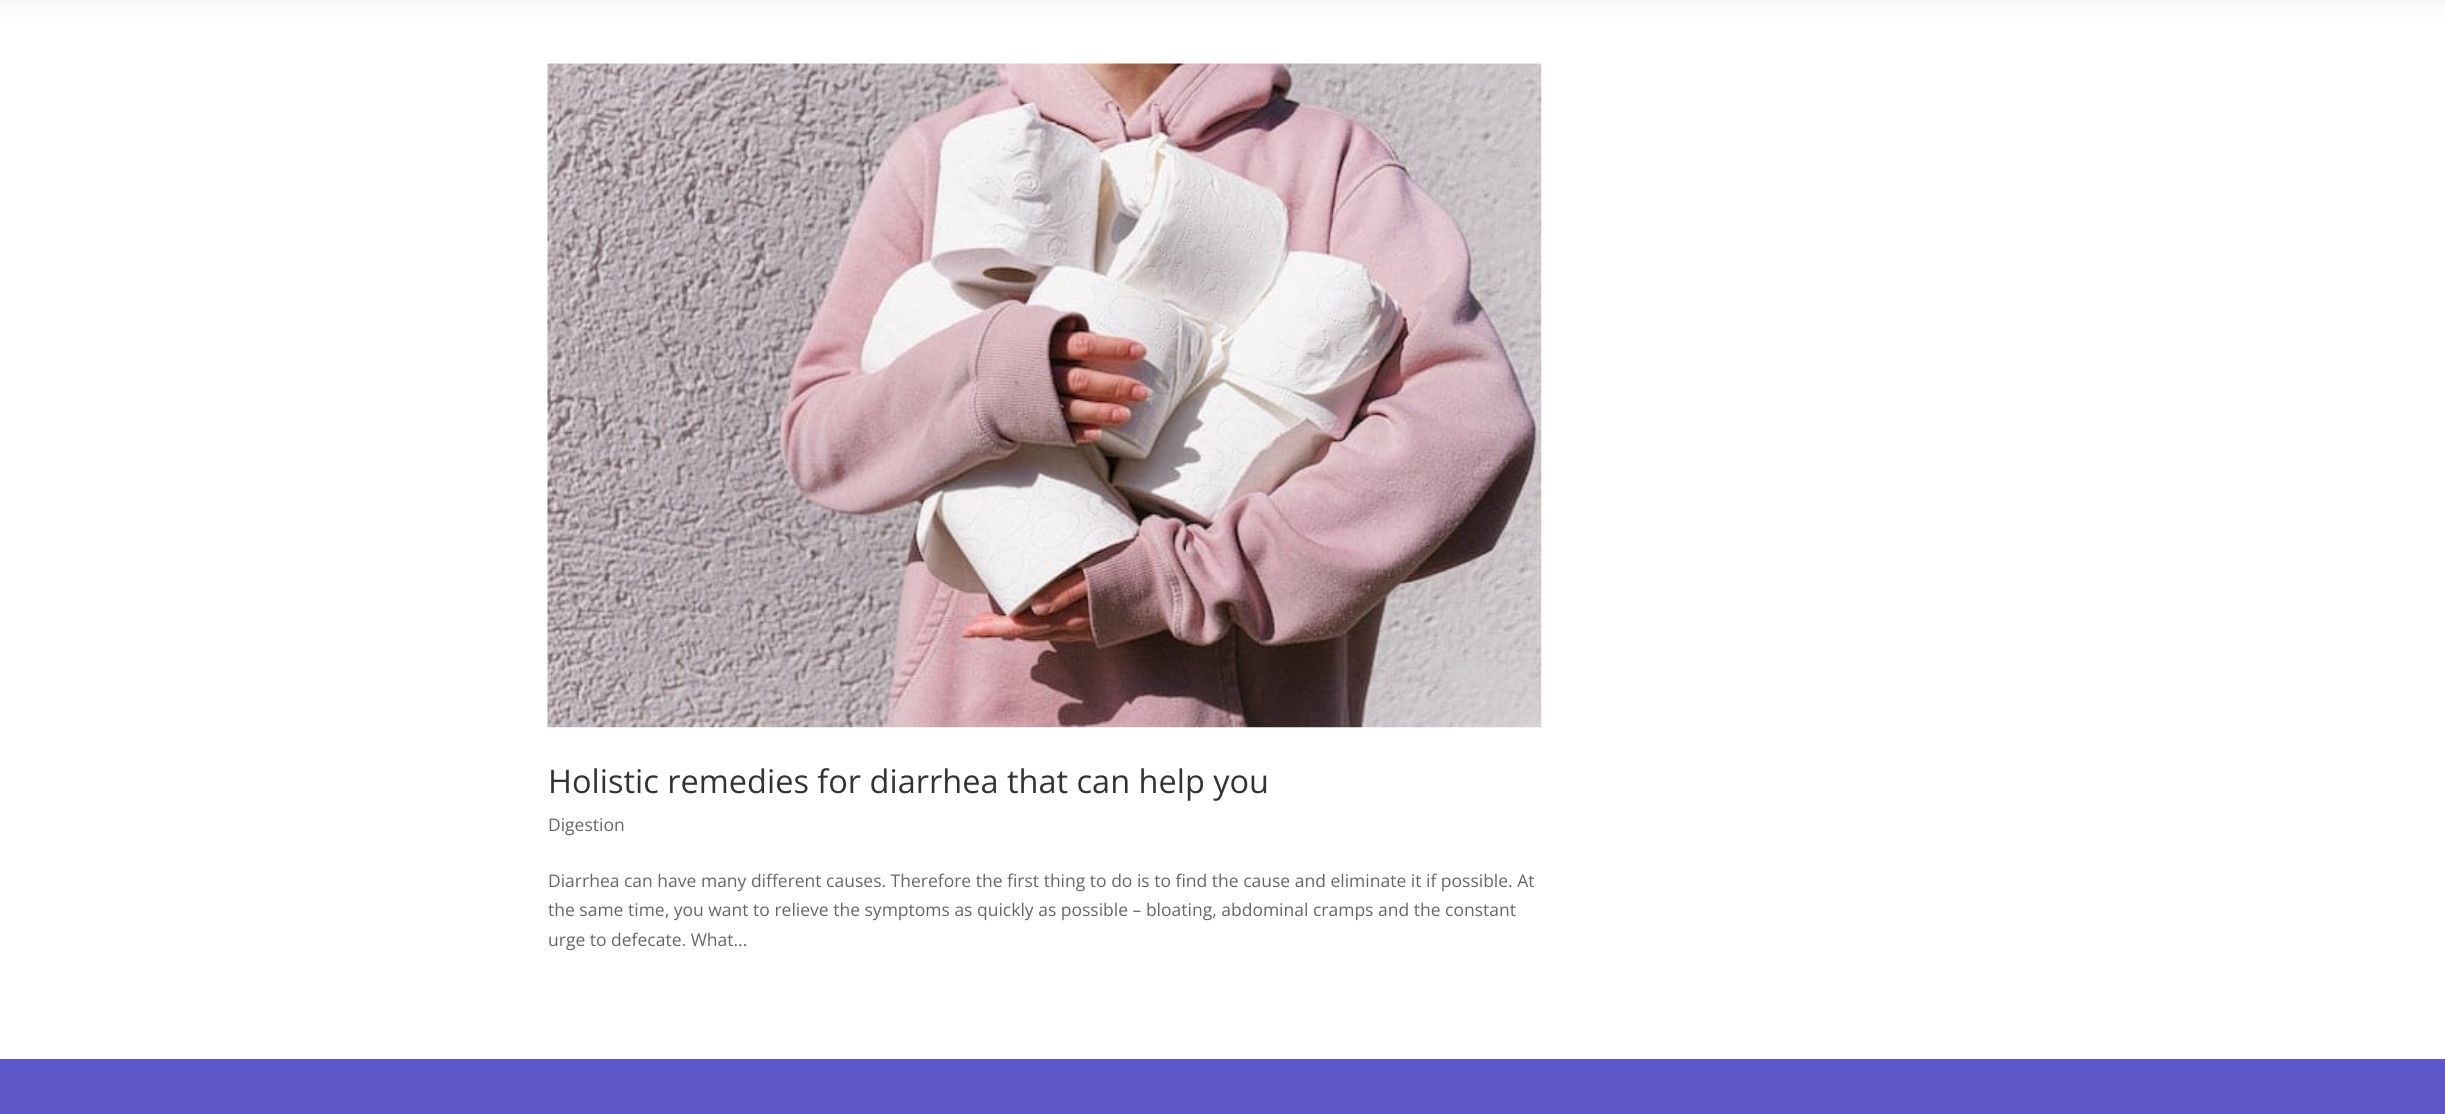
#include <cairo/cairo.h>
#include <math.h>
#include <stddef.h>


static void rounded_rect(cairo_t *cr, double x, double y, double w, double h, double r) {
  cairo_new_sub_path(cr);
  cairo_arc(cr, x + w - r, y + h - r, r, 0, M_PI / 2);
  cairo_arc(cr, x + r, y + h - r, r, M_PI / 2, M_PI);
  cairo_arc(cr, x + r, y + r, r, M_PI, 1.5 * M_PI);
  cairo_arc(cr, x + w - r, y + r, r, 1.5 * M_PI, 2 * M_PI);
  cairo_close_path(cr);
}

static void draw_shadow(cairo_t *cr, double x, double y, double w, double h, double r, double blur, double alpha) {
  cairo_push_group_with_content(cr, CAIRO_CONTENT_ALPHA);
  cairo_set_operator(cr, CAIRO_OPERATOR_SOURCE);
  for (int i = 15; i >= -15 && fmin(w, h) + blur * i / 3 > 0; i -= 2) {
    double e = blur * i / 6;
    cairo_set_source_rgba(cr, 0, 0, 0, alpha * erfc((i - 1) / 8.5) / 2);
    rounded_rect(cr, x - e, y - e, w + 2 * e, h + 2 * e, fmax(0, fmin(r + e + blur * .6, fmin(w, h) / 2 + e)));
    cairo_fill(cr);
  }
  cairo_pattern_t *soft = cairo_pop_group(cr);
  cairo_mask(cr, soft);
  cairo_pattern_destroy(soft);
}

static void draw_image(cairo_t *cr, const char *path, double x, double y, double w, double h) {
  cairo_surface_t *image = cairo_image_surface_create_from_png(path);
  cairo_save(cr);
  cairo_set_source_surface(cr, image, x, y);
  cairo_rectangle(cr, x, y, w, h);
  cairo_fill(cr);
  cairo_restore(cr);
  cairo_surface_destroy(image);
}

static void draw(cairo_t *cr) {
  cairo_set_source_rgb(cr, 1, 1, 1);
  cairo_paint(cr);
  cairo_set_source_rgb(cr, 0, 0, 0);
  draw_shadow(cr, 0, -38, 2445, 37, 0, 12.5, 0.09);
  draw_image(cr, "images/1.png", 547, 63, 995, 665);
  cairo_set_source_rgb(cr, 93 / 255.0, 86 / 255.0, 201 / 255.0);
  cairo_rectangle(cr, 0, 1059, 2445, 55);
  cairo_fill(cr);
  cairo_select_font_face(cr, "Open Sans", CAIRO_FONT_SLANT_NORMAL, CAIRO_FONT_WEIGHT_NORMAL);
  cairo_set_font_size(cr, 32.5);
  cairo_set_source_rgb(cr, 51 / 255.0, 51 / 255.0, 51 / 255.0);
  cairo_move_to(cr, 548, 793);
  cairo_show_text(cr, "Holistic remedies for diarrhea that can help you");
  cairo_set_font_size(cr, 17.5);
  cairo_set_source_rgb(cr, 102 / 255.0, 102 / 255.0, 102 / 255.0);
  cairo_move_to(cr, 548, 831);
  cairo_show_text(cr, "Digestion");
  cairo_move_to(cr, 548, 887);
  cairo_show_text(cr, "Diarrhea can have many different causes. Therefore the first thing to do is to find the cause and eliminate it if possible. At");
  cairo_move_to(cr, 548, 916);
  cairo_show_text(cr, "the same time, you want to relieve the symptoms as quickly as possible – bloating, abdominal cramps and the constant");
  cairo_move_to(cr, 548, 946);
  cairo_show_text(cr, "urge to defecate. What...");
}

int main(void) {
  cairo_surface_t *surface = cairo_image_surface_create(CAIRO_FORMAT_RGB24, 2445, 1114);
  cairo_t *cr = cairo_create(surface);
  cairo_font_options_t *options = cairo_font_options_create();
  cairo_font_options_set_hint_metrics(options, CAIRO_HINT_METRICS_OFF);
  cairo_font_options_set_hint_style(options, CAIRO_HINT_STYLE_NONE);
  cairo_set_font_options(cr, options);
  cairo_set_miter_limit(cr, 4);
  draw(cr);
  cairo_surface_write_to_png(surface, "out.png");
  cairo_font_options_destroy(options);
  cairo_destroy(cr);
  cairo_surface_destroy(surface);
  return 0;
}
